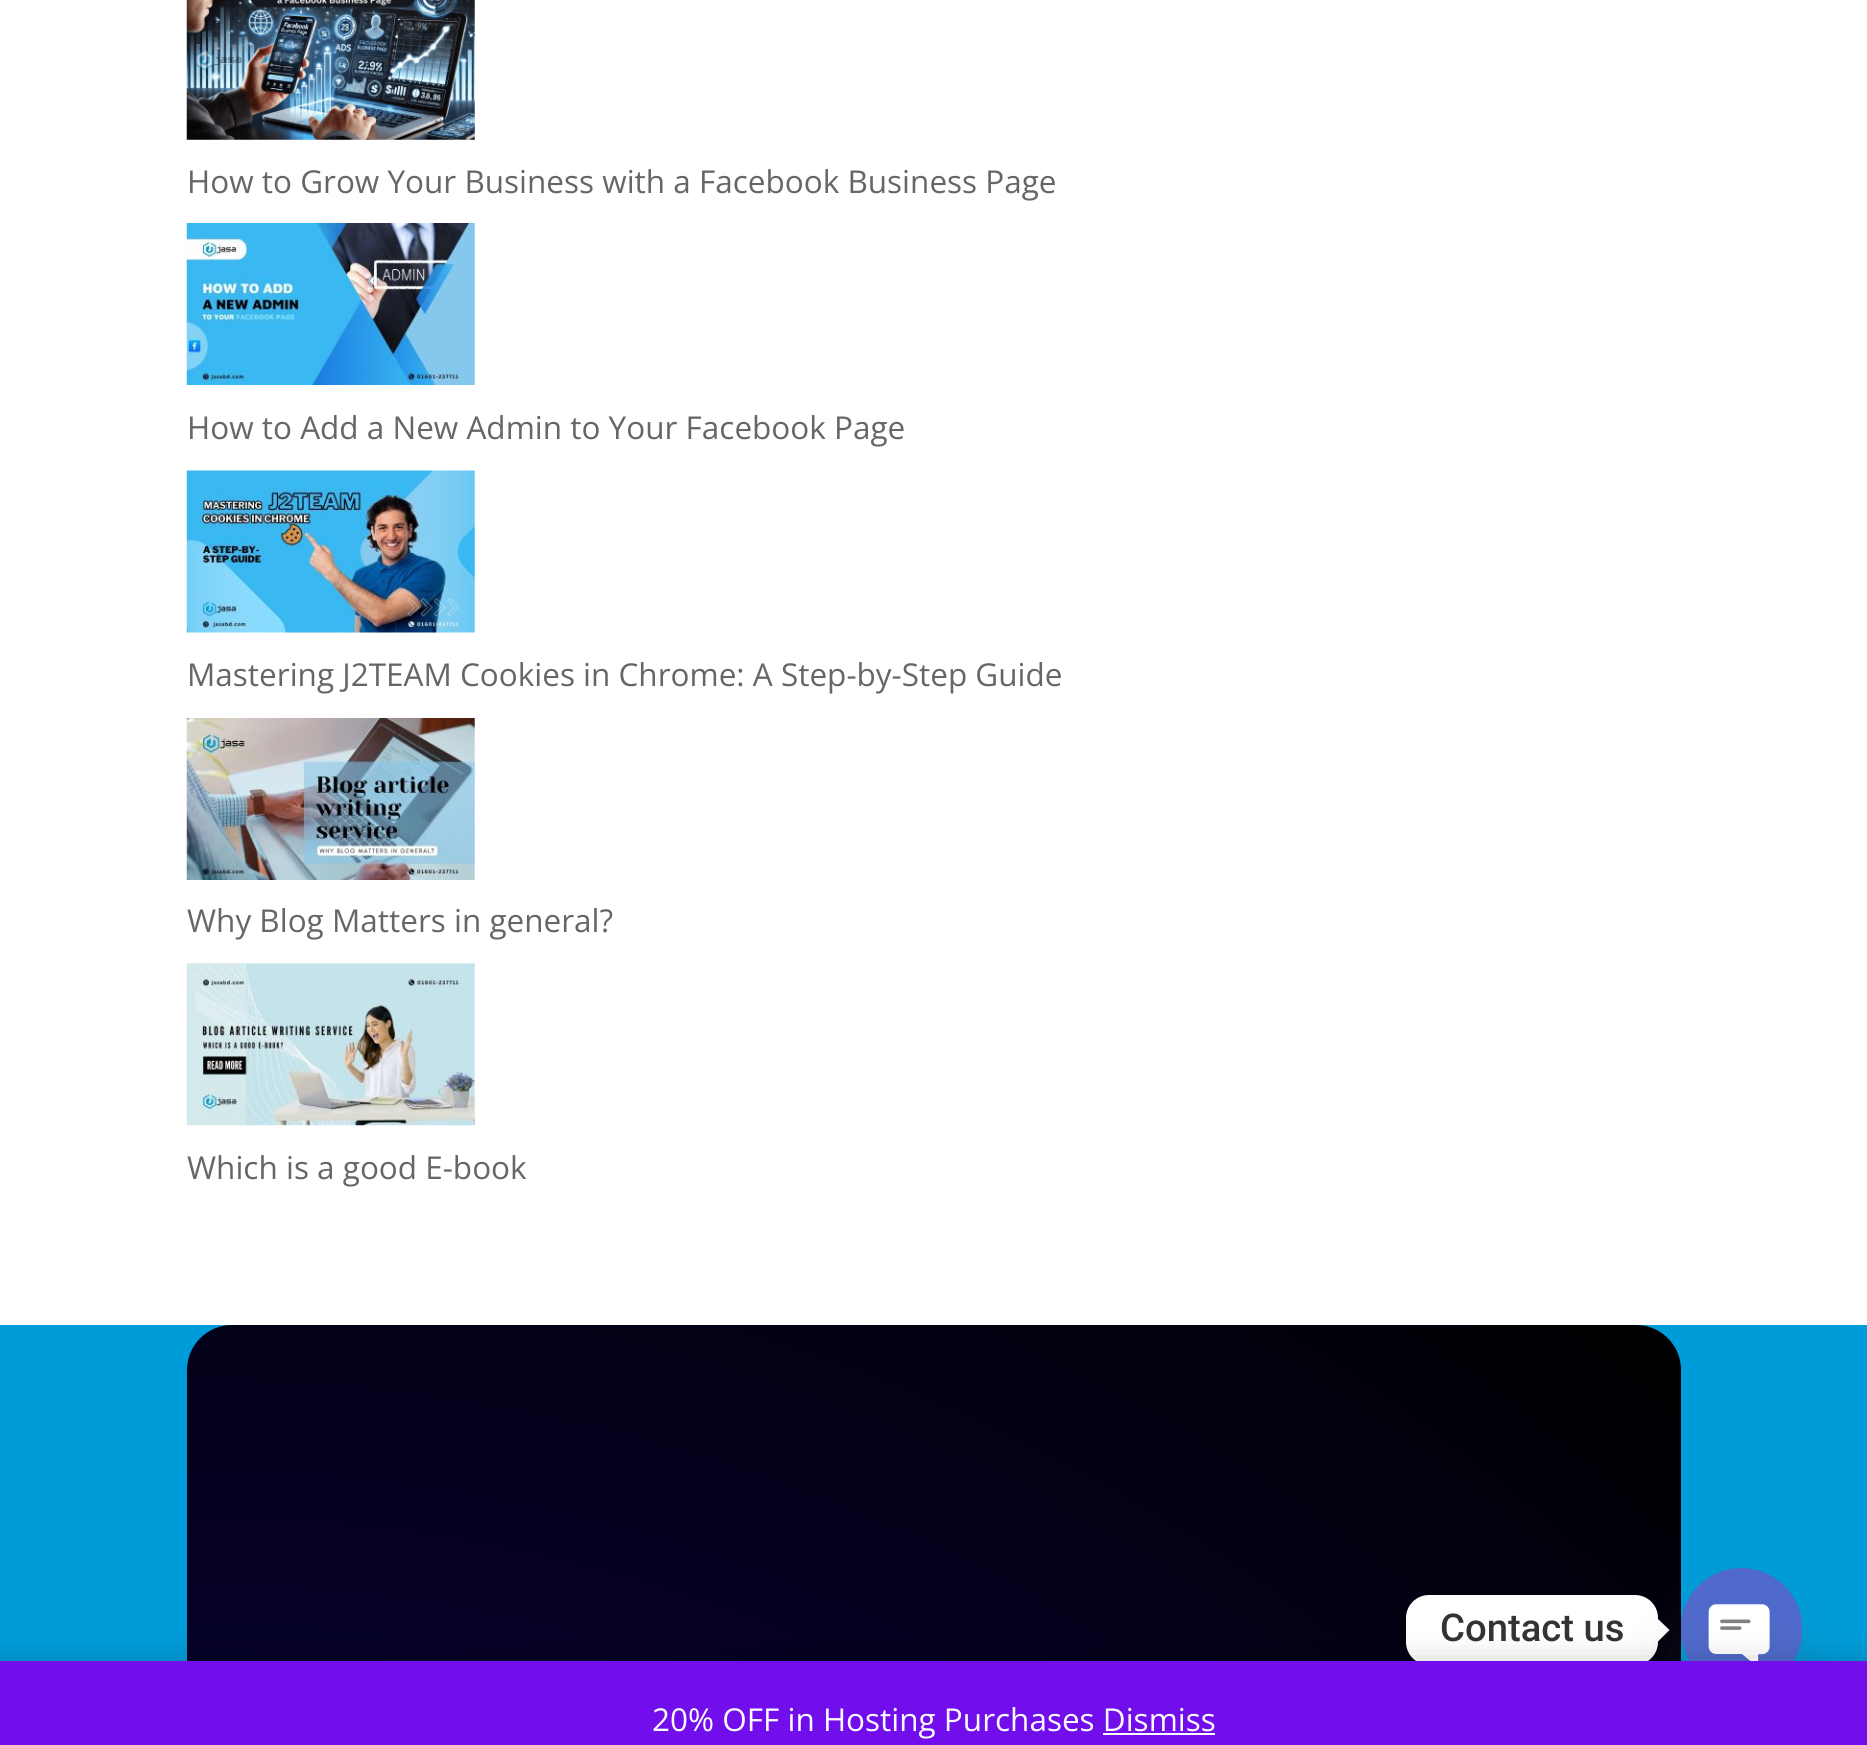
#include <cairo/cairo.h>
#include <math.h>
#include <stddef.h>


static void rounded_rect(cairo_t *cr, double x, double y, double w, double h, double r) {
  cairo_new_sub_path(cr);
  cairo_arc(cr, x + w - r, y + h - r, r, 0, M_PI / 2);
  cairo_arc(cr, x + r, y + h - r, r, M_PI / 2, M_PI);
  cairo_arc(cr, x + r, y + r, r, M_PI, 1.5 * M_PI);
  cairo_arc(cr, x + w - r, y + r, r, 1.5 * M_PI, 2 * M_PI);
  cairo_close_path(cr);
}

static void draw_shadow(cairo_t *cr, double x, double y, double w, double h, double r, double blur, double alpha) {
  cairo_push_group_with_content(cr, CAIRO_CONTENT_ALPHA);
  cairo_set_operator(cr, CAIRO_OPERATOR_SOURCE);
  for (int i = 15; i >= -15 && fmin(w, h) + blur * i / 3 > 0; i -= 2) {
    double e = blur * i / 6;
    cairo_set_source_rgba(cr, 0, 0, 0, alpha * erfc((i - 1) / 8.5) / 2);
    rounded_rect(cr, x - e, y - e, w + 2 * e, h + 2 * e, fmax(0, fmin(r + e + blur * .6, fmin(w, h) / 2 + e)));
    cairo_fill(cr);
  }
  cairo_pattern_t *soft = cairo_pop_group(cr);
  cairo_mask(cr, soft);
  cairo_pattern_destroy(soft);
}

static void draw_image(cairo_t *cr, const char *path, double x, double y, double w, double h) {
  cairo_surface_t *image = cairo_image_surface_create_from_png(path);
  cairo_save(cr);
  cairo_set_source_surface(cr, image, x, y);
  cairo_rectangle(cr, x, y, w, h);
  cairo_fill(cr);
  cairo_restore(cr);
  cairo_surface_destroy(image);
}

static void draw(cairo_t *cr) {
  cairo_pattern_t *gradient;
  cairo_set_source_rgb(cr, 0, 156 / 255.0, 217 / 255.0);
  cairo_paint(cr);
  cairo_set_source_rgb(cr, 1, 1, 1);
  cairo_rectangle(cr, 0, 0, 1867, 1325);
  cairo_fill(cr);
  draw_image(cr, "images/1.png", 186, 0, 289, 140);
  draw_image(cr, "images/2.png", 186, 223, 289, 162);
  draw_image(cr, "images/3.png", 186, 470, 289, 163);
  draw_image(cr, "images/4.png", 186, 718, 289, 162);
  draw_image(cr, "images/5.png", 186, 963, 289, 163);
  gradient = cairo_pattern_create_radial(187, 3132, 0, 187, 3132, 2344);
  cairo_pattern_add_color_stop_rgba(gradient, 0, 111 / 255.0, 0, 193 / 255.0, 1);
  cairo_pattern_add_color_stop_rgba(gradient, 0.4, 7 / 255.0, 2 / 255.0, 63 / 255.0, 1);
  cairo_pattern_add_color_stop_rgba(gradient, 1, 0, 0, 0, 1);
  cairo_set_source(cr, gradient);
  cairo_pattern_destroy(gradient);
  rounded_rect(cr, 187, 1325, 1494, 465, 45);
  cairo_fill(cr);
  cairo_set_source_rgb(cr, 1, 1, 1);
  rounded_rect(cr, 1406, 1595, 252, 70, 23);
  cairo_fill(cr);
  cairo_new_path(cr);
  cairo_move_to(cr, 1658, 1641.5);
  cairo_line_to(cr, 1658, 1619);
  cairo_line_to(cr, 1669.5, 1630);
  cairo_close_path(cr);
  cairo_fill(cr);
  cairo_set_source_rgb(cr, 73 / 255.0, 104 / 255.0, 126 / 255.0);
  draw_shadow(cr, 1681, 1604, 121, 122, 60.5, 27, 0.16);
  draw_image(cr, "images/6.png", 1681, 1568, 121, 93);
  cairo_set_source_rgb(cr, 0, 0, 0);
  draw_shadow(cr, 0, 1663, 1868, 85, 0, 16, 0.2);
  cairo_set_source_rgb(cr, 114 / 255.0, 14 / 255.0, 236 / 255.0);
  cairo_rectangle(cr, 0, 1661, 1867, 84);
  cairo_fill(cr);
  cairo_set_source_rgb(cr, 252 / 255.0, 251 / 255.0, 254 / 255.0);
  cairo_rectangle(cr, 1103, 1733, 112, 2);
  cairo_fill(cr);
  cairo_select_font_face(cr, "Open Sans", CAIRO_FONT_SLANT_NORMAL, CAIRO_FONT_WEIGHT_NORMAL);
  cairo_set_font_size(cr, 31.5);
  cairo_set_source_rgb(cr, 102 / 255.0, 102 / 255.0, 102 / 255.0);
  cairo_move_to(cr, 187, 193);
  cairo_show_text(cr, "How to Grow Your Business with a Facebook Business Page");
  cairo_move_to(cr, 187, 439);
  cairo_show_text(cr, "How to Add a New Admin to Your Facebook Page");
  cairo_move_to(cr, 187, 686);
  cairo_show_text(cr, "Mastering J2TEAM Cookies in Chrome: A Step-by-Step Guide");
  cairo_move_to(cr, 187, 932);
  cairo_show_text(cr, "Why Blog Matters in general?");
  cairo_move_to(cr, 187, 1179);
  cairo_show_text(cr, "Which is a good E-book");
  cairo_select_font_face(cr, "Roboto Medium", CAIRO_FONT_SLANT_NORMAL, CAIRO_FONT_WEIGHT_NORMAL);
  cairo_set_font_size(cr, 38.25);
  cairo_set_source_rgb(cr, 51 / 255.0, 51 / 255.0, 51 / 255.0);
  cairo_move_to(cr, 1440, 1641);
  cairo_show_text(cr, "Contact us");
  cairo_select_font_face(cr, "Open Sans", CAIRO_FONT_SLANT_NORMAL, CAIRO_FONT_WEIGHT_NORMAL);
  cairo_set_font_size(cr, 31.5);
  cairo_set_source_rgb(cr, 252 / 255.0, 251 / 255.0, 254 / 255.0);
  cairo_move_to(cr, 652, 1731);
  cairo_show_text(cr, "20% OFF in Hosting Purchases Dismiss");
}

int main(void) {
  cairo_surface_t *surface = cairo_image_surface_create(CAIRO_FORMAT_RGB24, 1867, 1745);
  cairo_t *cr = cairo_create(surface);
  cairo_font_options_t *options = cairo_font_options_create();
  cairo_font_options_set_hint_metrics(options, CAIRO_HINT_METRICS_OFF);
  cairo_font_options_set_hint_style(options, CAIRO_HINT_STYLE_NONE);
  cairo_set_font_options(cr, options);
  cairo_set_miter_limit(cr, 4);
  draw(cr);
  cairo_surface_write_to_png(surface, "out.png");
  cairo_font_options_destroy(options);
  cairo_destroy(cr);
  cairo_surface_destroy(surface);
  return 0;
}
